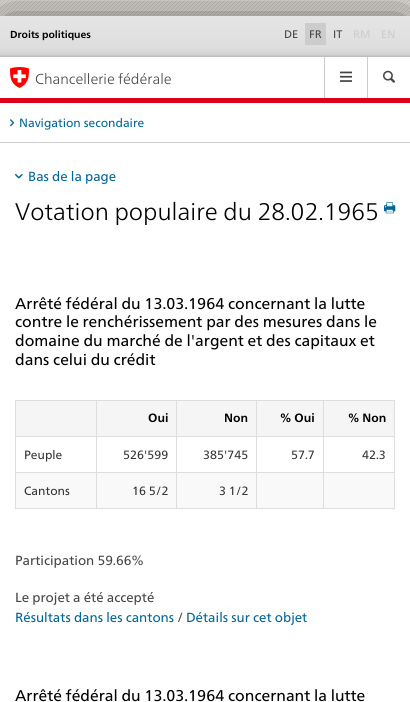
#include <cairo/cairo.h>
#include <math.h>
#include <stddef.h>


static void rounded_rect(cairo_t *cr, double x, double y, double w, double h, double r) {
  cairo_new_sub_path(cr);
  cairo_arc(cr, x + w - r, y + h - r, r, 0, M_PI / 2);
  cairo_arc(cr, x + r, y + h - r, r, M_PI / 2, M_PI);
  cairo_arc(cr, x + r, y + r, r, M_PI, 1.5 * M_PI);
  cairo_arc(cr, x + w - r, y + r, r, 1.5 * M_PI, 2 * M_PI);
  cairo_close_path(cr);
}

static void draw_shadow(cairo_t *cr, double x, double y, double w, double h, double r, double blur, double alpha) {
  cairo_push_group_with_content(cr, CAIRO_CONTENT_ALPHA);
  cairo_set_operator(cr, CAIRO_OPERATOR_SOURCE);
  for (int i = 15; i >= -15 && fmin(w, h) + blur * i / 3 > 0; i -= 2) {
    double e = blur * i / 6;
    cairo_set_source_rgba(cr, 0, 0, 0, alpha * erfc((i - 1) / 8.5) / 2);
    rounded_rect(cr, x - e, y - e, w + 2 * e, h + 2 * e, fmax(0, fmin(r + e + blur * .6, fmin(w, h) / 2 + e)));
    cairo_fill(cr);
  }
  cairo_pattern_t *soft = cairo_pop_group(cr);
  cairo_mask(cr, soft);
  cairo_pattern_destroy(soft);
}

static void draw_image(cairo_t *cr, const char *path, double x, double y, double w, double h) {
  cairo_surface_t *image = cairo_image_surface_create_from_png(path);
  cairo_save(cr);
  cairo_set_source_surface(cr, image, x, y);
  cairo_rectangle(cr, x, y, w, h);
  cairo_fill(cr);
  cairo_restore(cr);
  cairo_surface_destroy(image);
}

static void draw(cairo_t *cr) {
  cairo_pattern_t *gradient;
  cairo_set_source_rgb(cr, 1, 1, 1);
  cairo_paint(cr);
  draw_image(cr, "images/1.png", 0, 0, 410, 16);
  cairo_set_source_rgb(cr, 0, 0, 0);
  draw_shadow(cr, 0, 16, 410, 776, 0, 30, 0.6);
  cairo_set_source_rgb(cr, 1, 1, 1);
  cairo_rectangle(cr, 0, 57, 410, 645);
  cairo_fill(cr);
  gradient = cairo_pattern_create_linear(205, 16, 205, 57);
  cairo_pattern_add_color_stop_rgba(gradient, 0, 228 / 255.0, 228 / 255.0, 228 / 255.0, 1);
  cairo_pattern_add_color_stop_rgba(gradient, 0.39, 226 / 255.0, 226 / 255.0, 226 / 255.0, 1);
  cairo_pattern_add_color_stop_rgba(gradient, 0.79, 221 / 255.0, 221 / 255.0, 221 / 255.0, 1);
  cairo_pattern_add_color_stop_rgba(gradient, 0.91, 213 / 255.0, 213 / 255.0, 213 / 255.0, 1);
  cairo_pattern_add_color_stop_rgba(gradient, 0.95, 207 / 255.0, 207 / 255.0, 207 / 255.0, 1);
  cairo_pattern_add_color_stop_rgba(gradient, 0.99, 190 / 255.0, 190 / 255.0, 190 / 255.0, 1);
  cairo_set_source(cr, gradient);
  cairo_pattern_destroy(gradient);
  cairo_rectangle(cr, 0, 16, 410, 41);
  cairo_fill(cr);
  cairo_set_source_rgb(cr, 204 / 255.0, 204 / 255.0, 204 / 255.0);
  cairo_rectangle(cr, 305, 23, 21, 22);
  cairo_fill(cr);
  cairo_set_source_rgb(cr, 220 / 255.0, 0, 24 / 255.0);
  cairo_rectangle(cr, 0, 98, 410, 5);
  cairo_fill(cr);
  draw_image(cr, "images/2.png", 10, 67, 19, 21);
  cairo_set_source_rgb(cr, 204 / 255.0, 204 / 255.0, 204 / 255.0);
  cairo_rectangle(cr, 324, 57, 1, 41);
  cairo_fill(cr);
  draw_image(cr, "images/3.png", 340, 71, 12, 11);
  cairo_rectangle(cr, 367, 57, 1, 41);
  cairo_fill(cr);
  draw_image(cr, "images/4.png", 383, 70, 12, 13);
  cairo_rectangle(cr, 0, 142, 410, 1);
  cairo_fill(cr);
  draw_image(cr, "images/5.png", 10, 119, 4, 8);
  draw_image(cr, "images/6.png", 15, 174, 8, 5);
  draw_image(cr, "images/7.png", 384, 202, 12, 12);
  cairo_set_source_rgb(cr, 221 / 255.0, 221 / 255.0, 221 / 255.0);
  cairo_rectangle(cr, 15, 400, 380, 1);
  cairo_fill(cr);
  cairo_rectangle(cr, 394, 400, 1, 109);
  cairo_fill(cr);
  cairo_rectangle(cr, 15, 508, 380, 1);
  cairo_fill(cr);
  cairo_rectangle(cr, 15, 400, 1, 109);
  cairo_fill(cr);
  cairo_set_source_rgb(cr, 245 / 255.0, 245 / 255.0, 245 / 255.0);
  cairo_rectangle(cr, 16, 401, 80, 35);
  cairo_fill(cr);
  cairo_rectangle(cr, 97, 401, 79, 35);
  cairo_fill(cr);
  cairo_set_source_rgb(cr, 221 / 255.0, 221 / 255.0, 221 / 255.0);
  cairo_rectangle(cr, 323, 436, 72, 1);
  cairo_fill(cr);
  cairo_rectangle(cr, 323, 472, 72, 1);
  cairo_fill(cr);
  cairo_set_source_rgb(cr, 249 / 255.0, 249 / 255.0, 249 / 255.0);
  cairo_rectangle(cr, 16, 473, 378, 35);
  cairo_fill(cr);
  cairo_set_source_rgb(cr, 221 / 255.0, 221 / 255.0, 221 / 255.0);
  cairo_rectangle(cr, 323, 472, 1, 37);
  cairo_fill(cr);
  cairo_rectangle(cr, 256, 472, 68, 1);
  cairo_fill(cr);
  cairo_rectangle(cr, 323, 436, 1, 37);
  cairo_fill(cr);
  cairo_rectangle(cr, 256, 436, 68, 1);
  cairo_fill(cr);
  cairo_rectangle(cr, 256, 472, 1, 37);
  cairo_fill(cr);
  cairo_rectangle(cr, 176, 472, 81, 1);
  cairo_fill(cr);
  cairo_rectangle(cr, 256, 436, 1, 37);
  cairo_fill(cr);
  cairo_rectangle(cr, 176, 436, 81, 1);
  cairo_fill(cr);
  cairo_rectangle(cr, 176, 472, 1, 37);
  cairo_fill(cr);
  cairo_rectangle(cr, 96, 472, 81, 1);
  cairo_fill(cr);
  cairo_rectangle(cr, 176, 436, 1, 37);
  cairo_fill(cr);
  cairo_rectangle(cr, 96, 436, 81, 1);
  cairo_fill(cr);
  cairo_rectangle(cr, 96, 472, 1, 37);
  cairo_fill(cr);
  cairo_rectangle(cr, 15, 472, 82, 1);
  cairo_fill(cr);
  cairo_rectangle(cr, 96, 436, 1, 37);
  cairo_fill(cr);
  cairo_rectangle(cr, 15, 436, 82, 1);
  cairo_fill(cr);
  cairo_rectangle(cr, 96, 400, 1, 37);
  cairo_fill(cr);
  cairo_set_source_rgb(cr, 245 / 255.0, 245 / 255.0, 245 / 255.0);
  cairo_rectangle(cr, 177, 401, 79, 35);
  cairo_fill(cr);
  cairo_set_source_rgb(cr, 221 / 255.0, 221 / 255.0, 221 / 255.0);
  cairo_rectangle(cr, 176, 400, 1, 37);
  cairo_fill(cr);
  cairo_set_source_rgb(cr, 245 / 255.0, 245 / 255.0, 245 / 255.0);
  cairo_rectangle(cr, 257, 401, 66, 35);
  cairo_fill(cr);
  cairo_set_source_rgb(cr, 221 / 255.0, 221 / 255.0, 221 / 255.0);
  cairo_rectangle(cr, 256, 400, 1, 37);
  cairo_fill(cr);
  cairo_set_source_rgb(cr, 245 / 255.0, 245 / 255.0, 245 / 255.0);
  cairo_rectangle(cr, 324, 401, 70, 35);
  cairo_fill(cr);
  cairo_set_source_rgb(cr, 221 / 255.0, 221 / 255.0, 221 / 255.0);
  cairo_rectangle(cr, 323, 400, 1, 37);
  cairo_fill(cr);
  cairo_select_font_face(cr, "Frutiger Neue", CAIRO_FONT_SLANT_NORMAL, CAIRO_FONT_WEIGHT_BOLD);
  cairo_set_font_size(cr, 10.25);
  cairo_set_source_rgb(cr, 0, 0, 0);
  cairo_move_to(cr, 10, 38);
  cairo_show_text(cr, "Droits politiques");
  cairo_select_font_face(cr, "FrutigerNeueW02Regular", CAIRO_FONT_SLANT_NORMAL, CAIRO_FONT_WEIGHT_NORMAL);
  cairo_set_font_size(cr, 11);
  cairo_set_source_rgb(cr, 69 / 255.0, 69 / 255.0, 69 / 255.0);
  cairo_move_to(cr, 284, 38);
  cairo_show_text(cr, "DE");
  cairo_move_to(cr, 309, 38);
  cairo_show_text(cr, "FR");
  cairo_move_to(cr, 333, 38);
  cairo_show_text(cr, "IT");
  cairo_set_source_rgb(cr, 204 / 255.0, 204 / 255.0, 204 / 255.0);
  cairo_move_to(cr, 353, 38);
  cairo_show_text(cr, "RM");
  cairo_move_to(cr, 381, 38);
  cairo_show_text(cr, "EN");
  cairo_select_font_face(cr, "Frutiger Neue Light", CAIRO_FONT_SLANT_NORMAL, CAIRO_FONT_WEIGHT_NORMAL);
  cairo_set_font_size(cr, 14.5);
  cairo_set_source_rgb(cr, 69 / 255.0, 69 / 255.0, 69 / 255.0);
  cairo_move_to(cr, 35, 84);
  cairo_show_text(cr, "Chancellerie fédérale");
  cairo_select_font_face(cr, "FrutigerNeueW02Regular", CAIRO_FONT_SLANT_NORMAL, CAIRO_FONT_WEIGHT_NORMAL);
  cairo_set_font_size(cr, 12);
  cairo_set_source_rgb(cr, 0, 102 / 255.0, 153 / 255.0);
  cairo_move_to(cr, 19, 127);
  cairo_show_text(cr, "Navigation secondaire");
  cairo_set_font_size(cr, 13.25);
  cairo_move_to(cr, 28, 181);
  cairo_show_text(cr, "Bas de la page");
  cairo_select_font_face(cr, "Frutiger Neue Light", CAIRO_FONT_SLANT_NORMAL, CAIRO_FONT_WEIGHT_NORMAL);
  cairo_set_font_size(cr, 24);
  cairo_set_source_rgb(cr, 0, 0, 0);
  cairo_move_to(cr, 15, 220);
  cairo_show_text(cr, "Votation populaire du 28.02.1965");
  cairo_select_font_face(cr, "FrutigerNeueW02Regular", CAIRO_FONT_SLANT_NORMAL, CAIRO_FONT_WEIGHT_NORMAL);
  cairo_set_font_size(cr, 15.6);
  cairo_move_to(cr, 15, 309);
  cairo_show_text(cr, "Arrêté fédéral du 13.03.1964 concernant la lutte");
  cairo_move_to(cr, 15, 327);
  cairo_show_text(cr, "contre le renchérissement par des mesures dans le");
  cairo_move_to(cr, 15, 346);
  cairo_show_text(cr, "domaine du marché de l'argent et des capitaux et");
  cairo_move_to(cr, 15, 365);
  cairo_show_text(cr, "dans celui du crédit");
  cairo_select_font_face(cr, "Frutiger Neue", CAIRO_FONT_SLANT_NORMAL, CAIRO_FONT_WEIGHT_BOLD);
  cairo_set_font_size(cr, 12);
  cairo_move_to(cr, 148, 422);
  cairo_show_text(cr, "Oui");
  cairo_move_to(cr, 224, 422);
  cairo_show_text(cr, "Non");
  cairo_move_to(cr, 280, 422);
  cairo_show_text(cr, "% Oui");
  cairo_move_to(cr, 348, 422);
  cairo_show_text(cr, "% Non");
  cairo_select_font_face(cr, "FrutigerNeueW02Regular", CAIRO_FONT_SLANT_NORMAL, CAIRO_FONT_WEIGHT_NORMAL);
  cairo_set_source_rgb(cr, 51 / 255.0, 51 / 255.0, 51 / 255.0);
  cairo_move_to(cr, 24, 459);
  cairo_show_text(cr, "Peuple");
  cairo_move_to(cr, 123, 459);
  cairo_show_text(cr, "526'599");
  cairo_move_to(cr, 203, 459);
  cairo_show_text(cr, "385'745");
  cairo_move_to(cr, 291, 459);
  cairo_show_text(cr, "57.7");
  cairo_move_to(cr, 362, 459);
  cairo_show_text(cr, "42.3");
  cairo_move_to(cr, 24, 495);
  cairo_show_text(cr, "Cantons");
  cairo_move_to(cr, 132, 495);
  cairo_show_text(cr, "16 5/2");
  cairo_move_to(cr, 219, 495);
  cairo_show_text(cr, "3 1/2");
  cairo_set_font_size(cr, 13.25);
  cairo_set_source_rgb(cr, 69 / 255.0, 69 / 255.0, 69 / 255.0);
  cairo_move_to(cr, 15, 565);
  cairo_show_text(cr, "Participation 59.66%");
  cairo_move_to(cr, 15, 602);
  cairo_show_text(cr, "Le projet a été accepté");
  cairo_set_source_rgb(cr, 0, 102 / 255.0, 153 / 255.0);
  cairo_move_to(cr, 15, 622);
  cairo_show_text(cr, "Résultats dans les cantons");
  cairo_set_source_rgb(cr, 69 / 255.0, 69 / 255.0, 69 / 255.0);
  cairo_move_to(cr, 177, 622);
  cairo_show_text(cr, "/");
  cairo_set_source_rgb(cr, 0, 102 / 255.0, 153 / 255.0);
  cairo_move_to(cr, 186, 622);
  cairo_show_text(cr, "Détails sur cet objet");
  cairo_set_font_size(cr, 15.6);
  cairo_set_source_rgb(cr, 0, 0, 0);
  cairo_move_to(cr, 15, 701);
  cairo_show_text(cr, "Arrêté fédéral du 13.03.1964 concernant la lutte");
}

int main(void) {
  cairo_surface_t *surface = cairo_image_surface_create(CAIRO_FORMAT_RGB24, 410, 702);
  cairo_t *cr = cairo_create(surface);
  cairo_font_options_t *options = cairo_font_options_create();
  cairo_font_options_set_hint_metrics(options, CAIRO_HINT_METRICS_OFF);
  cairo_font_options_set_hint_style(options, CAIRO_HINT_STYLE_NONE);
  cairo_set_font_options(cr, options);
  cairo_set_miter_limit(cr, 4);
  draw(cr);
  cairo_surface_write_to_png(surface, "out.png");
  cairo_font_options_destroy(options);
  cairo_destroy(cr);
  cairo_surface_destroy(surface);
  return 0;
}
